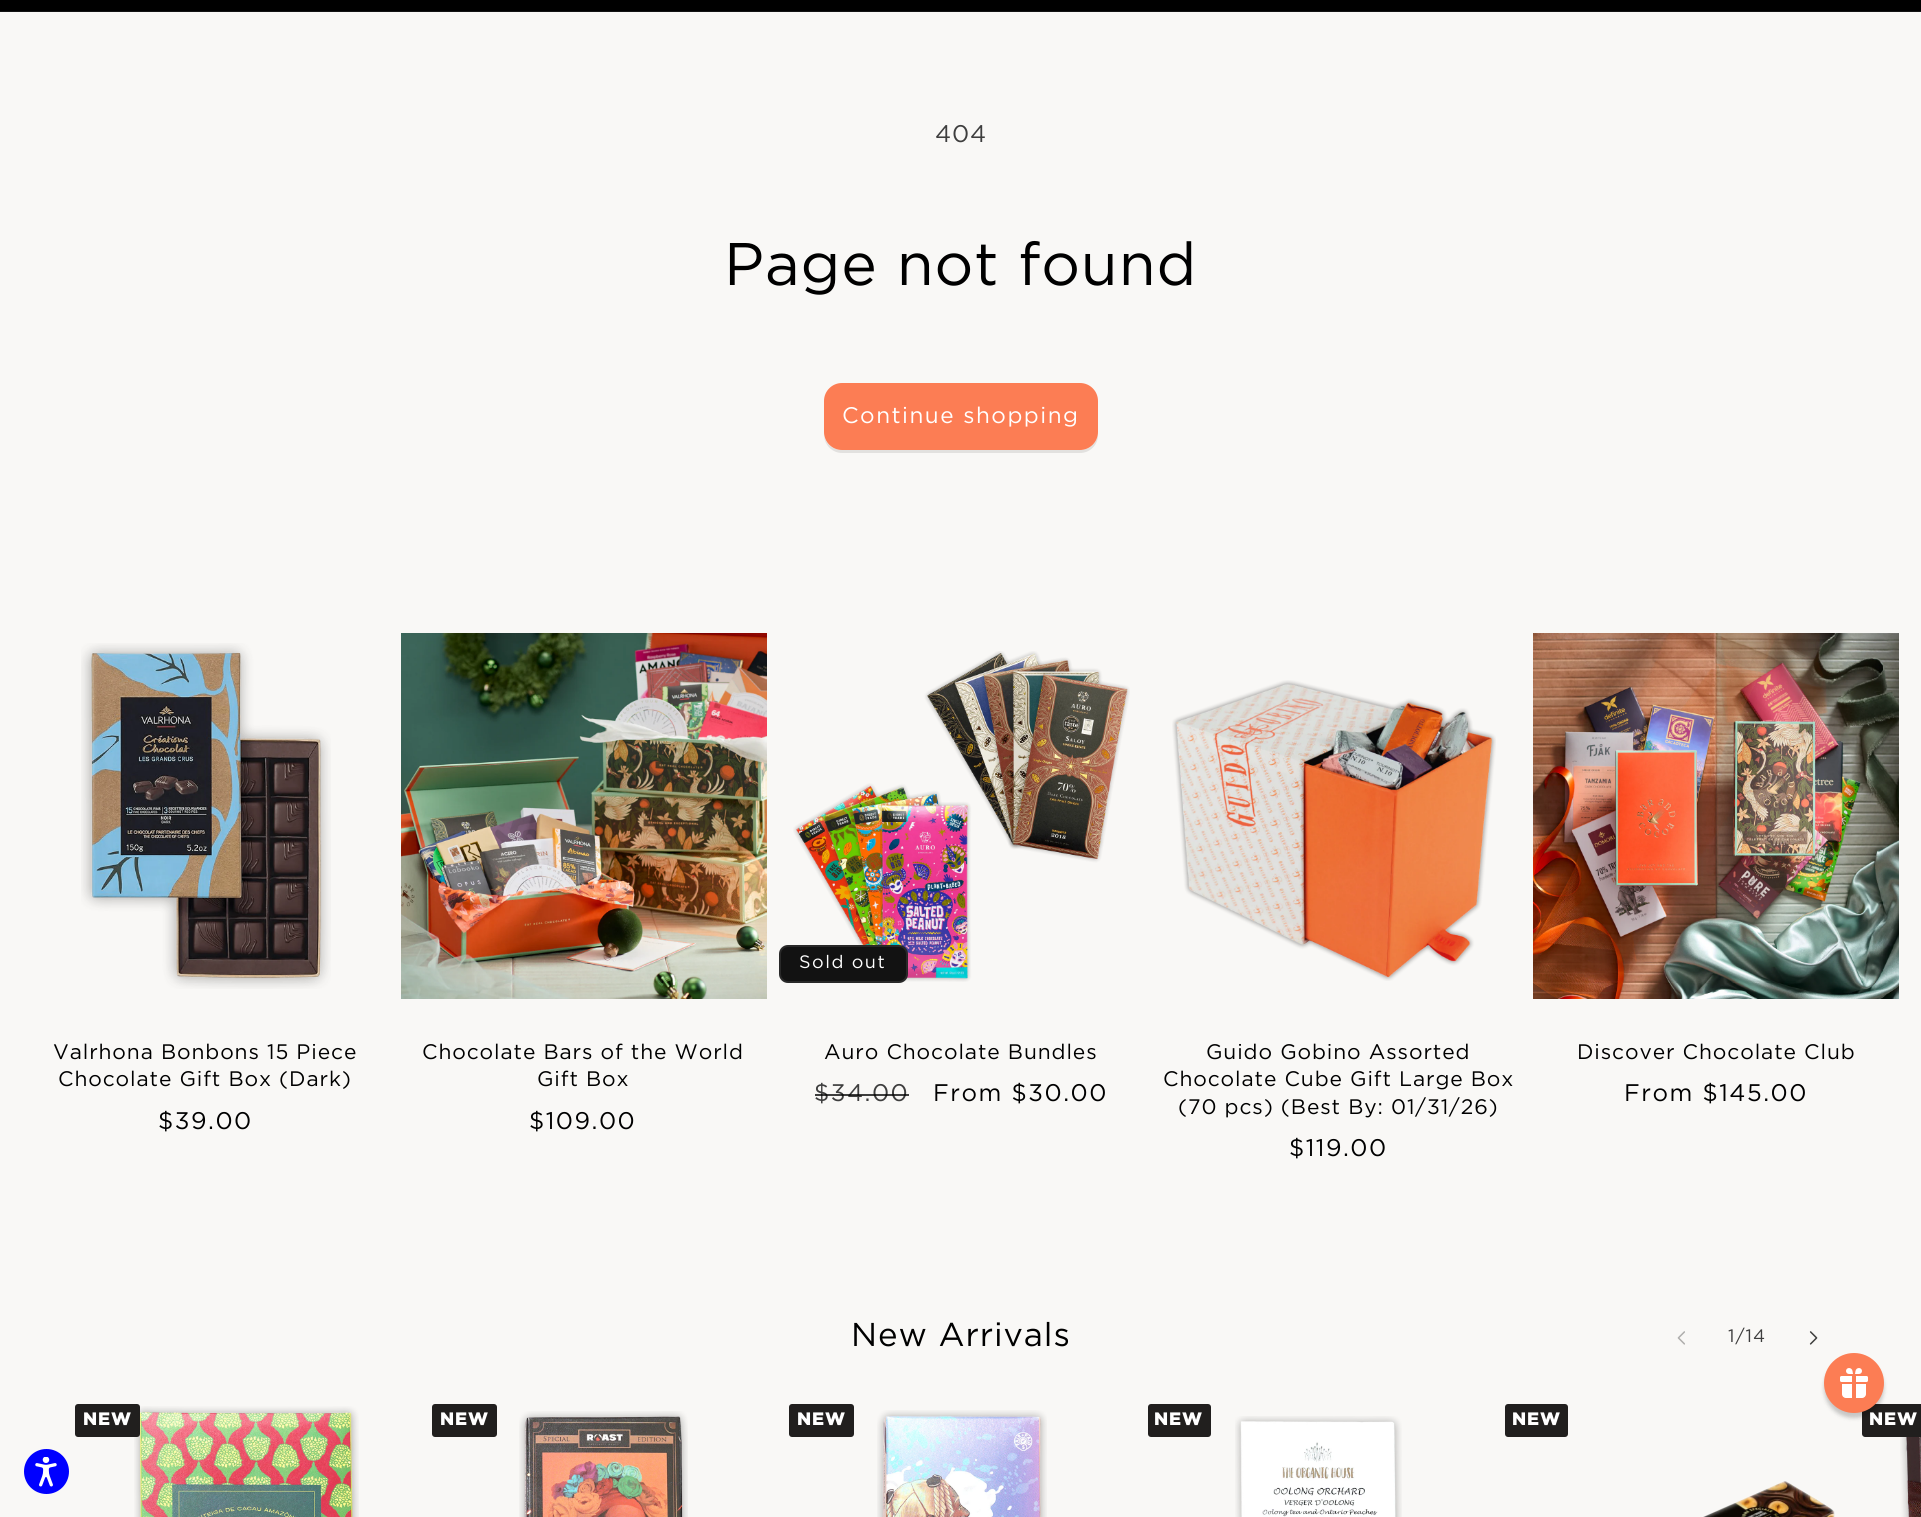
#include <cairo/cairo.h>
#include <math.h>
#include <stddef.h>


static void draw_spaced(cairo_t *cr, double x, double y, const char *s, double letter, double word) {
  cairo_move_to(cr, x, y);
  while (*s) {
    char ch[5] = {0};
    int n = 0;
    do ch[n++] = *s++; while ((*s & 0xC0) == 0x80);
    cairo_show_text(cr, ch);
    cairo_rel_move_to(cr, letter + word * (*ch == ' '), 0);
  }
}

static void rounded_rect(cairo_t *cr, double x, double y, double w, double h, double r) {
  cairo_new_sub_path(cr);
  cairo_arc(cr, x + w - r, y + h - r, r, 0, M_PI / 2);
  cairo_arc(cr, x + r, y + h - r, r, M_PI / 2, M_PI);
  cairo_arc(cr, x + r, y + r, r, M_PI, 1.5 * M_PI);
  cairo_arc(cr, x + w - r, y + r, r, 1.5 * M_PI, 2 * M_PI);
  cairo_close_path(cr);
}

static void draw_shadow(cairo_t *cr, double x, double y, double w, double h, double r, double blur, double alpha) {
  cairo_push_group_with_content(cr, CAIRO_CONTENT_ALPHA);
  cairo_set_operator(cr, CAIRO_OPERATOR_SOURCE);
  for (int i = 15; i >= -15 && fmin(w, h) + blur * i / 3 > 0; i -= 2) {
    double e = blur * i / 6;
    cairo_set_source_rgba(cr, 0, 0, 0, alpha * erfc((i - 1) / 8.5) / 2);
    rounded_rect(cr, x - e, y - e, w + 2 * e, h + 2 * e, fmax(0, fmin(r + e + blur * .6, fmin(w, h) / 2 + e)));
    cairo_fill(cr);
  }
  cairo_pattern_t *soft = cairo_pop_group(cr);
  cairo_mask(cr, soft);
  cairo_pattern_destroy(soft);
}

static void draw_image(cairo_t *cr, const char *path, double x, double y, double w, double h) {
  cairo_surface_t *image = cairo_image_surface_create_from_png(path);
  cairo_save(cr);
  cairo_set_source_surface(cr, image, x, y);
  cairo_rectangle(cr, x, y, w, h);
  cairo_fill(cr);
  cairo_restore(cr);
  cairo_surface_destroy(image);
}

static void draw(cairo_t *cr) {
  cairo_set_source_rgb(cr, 249 / 255.0, 248 / 255.0, 246 / 255.0);
  cairo_paint(cr);
  cairo_set_source_rgb(cr, 0, 0, 0);
  cairo_rectangle(cr, 0, 0, 1921, 11);
  cairo_fill(cr);
  cairo_set_source_rgb(cr, 20 / 255.0, 20 / 255.0, 20 / 255.0);
  cairo_rectangle(cr, 0, 11, 1921, 1);
  cairo_fill(cr);
  cairo_set_source_rgb(cr, 226 / 255.0, 225 / 255.0, 223 / 255.0);
  cairo_new_path(cr);
  cairo_move_to(cr, 824, 436);
  cairo_curve_to(cr, 825, 446, 833, 453, 842, 453);
  cairo_line_to(cr, 1080, 453);
  cairo_curve_to(cr, 1090, 453, 1098, 445, 1098, 435);
  cairo_line_to(cr, 1098, 432);
  cairo_curve_to(cr, 1098, 442, 1090, 450, 1080, 450);
  cairo_line_to(cr, 842, 450);
  cairo_curve_to(cr, 833, 450, 826, 444, 824, 436);
  cairo_close_path(cr);
  cairo_fill(cr);
  cairo_set_source_rgb(cr, 252 / 255.0, 125 / 255.0, 84 / 255.0);
  rounded_rect(cr, 824, 383, 274, 67, 18);
  cairo_fill(cr);
  draw_image(cr, "images/1.png", 81, 643, 250, 346);
  draw_image(cr, "images/2.png", 401, 633, 366, 366);
  draw_image(cr, "images/3.png", 793, 651, 337, 331);
  cairo_set_source_rgb(cr, 18 / 255.0, 18 / 255.0, 18 / 255.0);
  rounded_rect(cr, 779, 945, 129, 38, 9);
  cairo_fill(cr);
  rounded_rect(cr, 780, 946, 127, 36, 8);
  cairo_set_source_rgba(cr, 1, 1, 1, 0.1);
  cairo_stroke(cr);
  draw_image(cr, "images/4.png", 1172, 680, 324, 301);
  draw_image(cr, "images/5.png", 1533, 633, 366, 366);
  draw_image(cr, "images/6.png", 1677, 1331, 8, 14);
  draw_image(cr, "images/7.png", 1809, 1331, 9, 14);
  draw_image(cr, "images/8.png", 134, 1406, 225, 111);
  cairo_set_source_rgb(cr, 33 / 255.0, 31 / 255.0, 30 / 255.0);
  rounded_rect(cr, 75, 1404, 65, 33, 3);
  cairo_fill(cr);
  rounded_rect(cr, 432, 1404, 65, 33, 3);
  cairo_fill(cr);
  draw_image(cr, "images/9.png", 519, 1411, 169, 106);
  rounded_rect(cr, 789, 1404, 65, 33, 3);
  cairo_fill(cr);
  draw_image(cr, "images/10.png", 877, 1410, 170, 107);
  rounded_rect(cr, 1148, 1404, 63, 33, 3);
  cairo_fill(cr);
  draw_image(cr, "images/11.png", 1235, 1416, 167, 101);
  rounded_rect(cr, 1505, 1404, 63, 33, 3);
  cairo_fill(cr);
  draw_image(cr, "images/12.png", 1703, 1481, 132, 36);
  cairo_new_path(cr);
  cairo_move_to(cr, 1865, 1404);
  cairo_line_to(cr, 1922, 1404);
  cairo_line_to(cr, 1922, 1437);
  cairo_line_to(cr, 1865, 1437);
  cairo_curve_to(cr, 1863.5, 1437, 1862, 1435.5, 1862, 1434);
  cairo_line_to(cr, 1862, 1407);
  cairo_curve_to(cr, 1862, 1405.5, 1863.5, 1404, 1865, 1404);
  cairo_close_path(cr);
  cairo_fill(cr);
  draw_image(cr, "images/13.png", 1900, 1437, 21, 80);
  cairo_set_source_rgb(cr, 0, 0, 0);
  draw_shadow(cr, 1824, 1358, 60, 60, 30, 2, 0.2);
  cairo_set_source_rgb(cr, 0, 0, 1);
  cairo_arc(cr, 46.5, 1471.5, 22.5, 0, 2 * M_PI);
  cairo_fill(cr);
  draw_image(cr, "images/15.png", 35, 1457, 22, 30);
  cairo_select_font_face(cr, "Gotham", CAIRO_FONT_SLANT_NORMAL, CAIRO_FONT_WEIGHT_NORMAL);
  cairo_set_font_size(cr, 24);
  cairo_set_source_rgb(cr, 62 / 255.0, 62 / 255.0, 62 / 255.0);
  draw_spaced(cr, 935, 142, "404", 0.9, 0);
  cairo_set_font_size(cr, 60);
  cairo_set_source_rgb(cr, 0, 0, 0);
  draw_spaced(cr, 724, 285, "Page not found", 0.9, 0);
  cairo_set_font_size(cr, 22.5);
  cairo_set_source_rgb(cr, 1, 1, 1);
  draw_spaced(cr, 842, 423, "Continue shopping", 1.5, 0);
  cairo_set_font_size(cr, 21);
  cairo_set_source_rgb(cr, 0, 0, 0);
  draw_spaced(cr, 53, 1059, "Valrhona Bonbons 15 Piece", 0.9, 0);
  draw_spaced(cr, 58, 1086, "Chocolate Gift Box (Dark)", 0.9, 0);
  cairo_set_font_size(cr, 24);
  draw_spaced(cr, 158, 1129, "$39.00", 1.5, 0);
  cairo_set_font_size(cr, 21);
  draw_spaced(cr, 422, 1059, "Chocolate Bars of the World", 0.9, 0);
  draw_spaced(cr, 537, 1086, "Gift Box", 0.9, 0);
  cairo_set_font_size(cr, 24);
  draw_spaced(cr, 529, 1129, "$109.00", 1.5, 0);
  cairo_set_font_size(cr, 18);
  cairo_set_source_rgb(cr, 1, 1, 1);
  draw_spaced(cr, 799, 968, "Sold out", 1.5, 0);
  cairo_set_font_size(cr, 21);
  cairo_set_source_rgb(cr, 0, 0, 0);
  draw_spaced(cr, 824, 1059, "Auro Chocolate Bundles", 0.9, 0);
  cairo_set_font_size(cr, 24);
  cairo_set_source_rgb(cr, 62 / 255.0, 62 / 255.0, 62 / 255.0);
  draw_spaced(cr, 814, 1101, "$34.00", 1.5, 0);
  cairo_set_source_rgba(cr, 0, 0, 0, 0.75);
  cairo_rectangle(cr, 815, 1094, 94, 2);
  cairo_fill(cr);
  cairo_set_source_rgb(cr, 0, 0, 0);
  draw_spaced(cr, 933, 1101, "From $30.00", 1.5, 0);
  cairo_set_font_size(cr, 21);
  draw_spaced(cr, 1206, 1059, "Guido Gobino Assorted", 0.9, 0);
  draw_spaced(cr, 1163, 1086, "Chocolate Cube Gift Large Box", 0.9, 0);
  draw_spaced(cr, 1178, 1114, "(70 pcs) (Best By: 01/31/26)", 0.9, 0);
  cairo_set_font_size(cr, 24);
  draw_spaced(cr, 1289, 1156, "$119.00", 1.5, 0);
  cairo_set_font_size(cr, 21);
  draw_spaced(cr, 1577, 1059, "Discover Chocolate Club", 0.9, 0);
  cairo_set_font_size(cr, 24);
  draw_spaced(cr, 1624, 1101, "From $145.00", 1.5, 0);
  cairo_set_font_size(cr, 33);
  draw_spaced(cr, 851, 1346, "New Arrivals", 0.9, 0);
  cairo_set_font_size(cr, 18);
  cairo_set_source_rgb(cr, 62 / 255.0, 62 / 255.0, 62 / 255.0);
  draw_spaced(cr, 1728, 1342, "1/14", 1, 0);
  cairo_select_font_face(cr, "Gotham Black", CAIRO_FONT_SLANT_NORMAL, CAIRO_FONT_WEIGHT_NORMAL);
  cairo_set_source_rgb(cr, 1, 1, 1);
  draw_spaced(cr, 83, 1425, "NEW", 0.9, 0);
  draw_spaced(cr, 440, 1425, "NEW", 0.9, 0);
  draw_spaced(cr, 797, 1425, "NEW", 0.9, 0);
  draw_spaced(cr, 1154, 1425, "NEW", 0.9, 0);
  draw_spaced(cr, 1512, 1425, "NEW", 0.9, 0);
  draw_spaced(cr, 1869, 1425, "NEW", 0.9, 0);
  cairo_set_source_rgb(cr, 252 / 255.0, 125 / 255.0, 84 / 255.0);
  cairo_new_path(cr);
  cairo_arc(cr, 1854, 1383, 30, 0, 2 * M_PI);
  cairo_fill(cr);
  draw_image(cr, "images/14.png", 1840, 1368, 28, 30);
}

int main(void) {
  cairo_surface_t *surface = cairo_image_surface_create(CAIRO_FORMAT_RGB24, 1921, 1517);
  cairo_t *cr = cairo_create(surface);
  cairo_font_options_t *options = cairo_font_options_create();
  cairo_font_options_set_hint_metrics(options, CAIRO_HINT_METRICS_OFF);
  cairo_font_options_set_hint_style(options, CAIRO_HINT_STYLE_NONE);
  cairo_set_font_options(cr, options);
  cairo_set_miter_limit(cr, 4);
  draw(cr);
  cairo_surface_write_to_png(surface, "out.png");
  cairo_font_options_destroy(options);
  cairo_destroy(cr);
  cairo_surface_destroy(surface);
  return 0;
}
